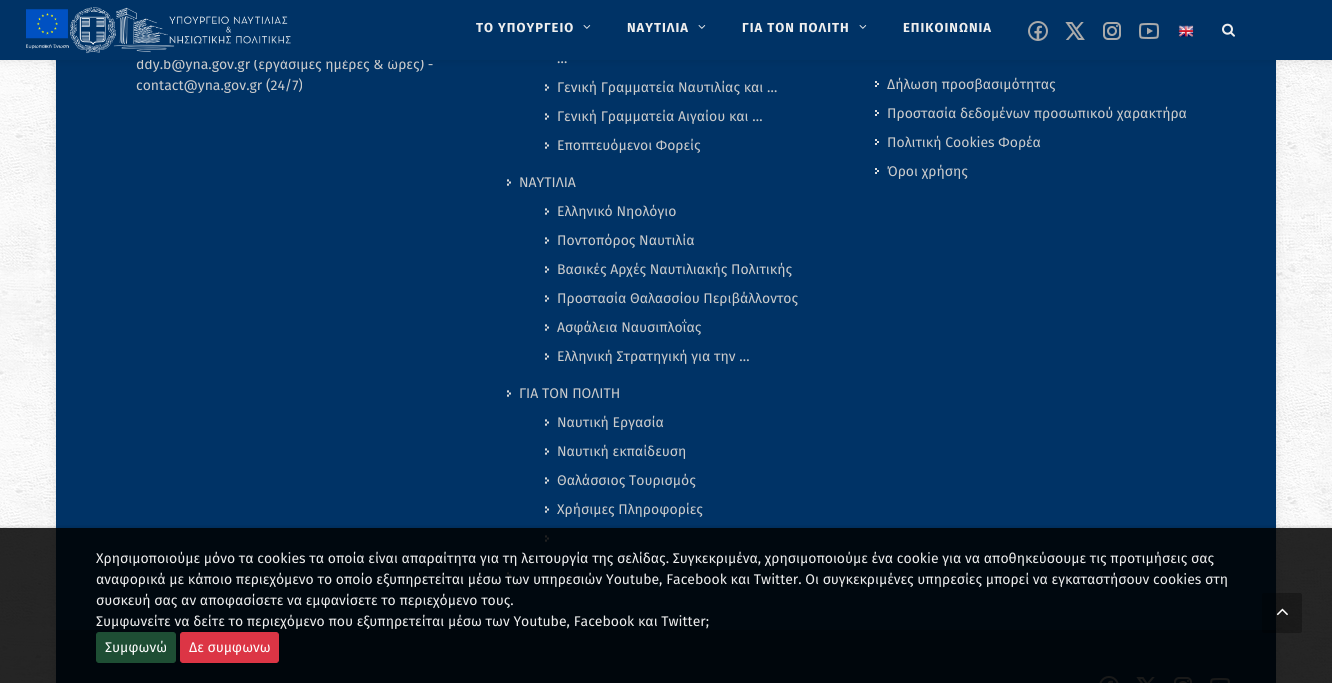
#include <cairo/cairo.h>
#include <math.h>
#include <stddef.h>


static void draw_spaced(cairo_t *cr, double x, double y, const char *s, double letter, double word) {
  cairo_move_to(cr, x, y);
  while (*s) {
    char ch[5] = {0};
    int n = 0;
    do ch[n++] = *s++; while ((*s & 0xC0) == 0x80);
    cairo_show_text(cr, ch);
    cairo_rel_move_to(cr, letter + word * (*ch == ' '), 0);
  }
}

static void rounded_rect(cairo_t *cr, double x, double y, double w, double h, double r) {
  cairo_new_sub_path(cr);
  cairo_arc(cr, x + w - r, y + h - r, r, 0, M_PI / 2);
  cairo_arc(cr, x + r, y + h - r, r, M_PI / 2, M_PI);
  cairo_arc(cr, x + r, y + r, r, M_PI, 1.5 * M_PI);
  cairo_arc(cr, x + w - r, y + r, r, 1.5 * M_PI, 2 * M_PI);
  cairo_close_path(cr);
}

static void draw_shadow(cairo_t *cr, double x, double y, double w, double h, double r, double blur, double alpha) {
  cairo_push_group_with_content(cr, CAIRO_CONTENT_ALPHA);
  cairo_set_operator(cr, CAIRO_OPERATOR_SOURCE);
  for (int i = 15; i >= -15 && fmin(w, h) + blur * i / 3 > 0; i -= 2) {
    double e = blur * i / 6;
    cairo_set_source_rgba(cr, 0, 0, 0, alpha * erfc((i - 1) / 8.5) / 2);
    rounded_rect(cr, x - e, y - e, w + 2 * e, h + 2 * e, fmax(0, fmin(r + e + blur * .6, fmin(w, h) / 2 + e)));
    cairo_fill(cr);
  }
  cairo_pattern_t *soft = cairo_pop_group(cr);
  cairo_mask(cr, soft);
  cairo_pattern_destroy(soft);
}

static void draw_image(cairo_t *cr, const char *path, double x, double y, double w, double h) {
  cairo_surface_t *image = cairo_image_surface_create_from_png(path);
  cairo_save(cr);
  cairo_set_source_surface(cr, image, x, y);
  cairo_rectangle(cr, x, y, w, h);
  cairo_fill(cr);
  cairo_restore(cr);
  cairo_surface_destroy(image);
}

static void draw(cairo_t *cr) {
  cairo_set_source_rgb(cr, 1, 1, 1);
  cairo_paint(cr);
  draw_image(cr, "images/1.png", 0, 60, 1332, 623);
  cairo_set_source_rgb(cr, 0, 0, 0);
  draw_shadow(cr, 56, -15, 1220, 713, 0, 5, 0.1);
  cairo_set_source_rgb(cr, 0, 51 / 255.0, 102 / 255.0);
  cairo_rectangle(cr, 56, 60, 1220, 570);
  cairo_fill(cr);
  cairo_set_source_rgb(cr, 0, 0, 0);
  draw_shadow(cr, 0, 0, 1332, 60, 0, 5, 0.1);
  draw_image(cr, "images/10.png", 545, 84, 4, 7);
  draw_image(cr, "images/10.png", 545, 113, 4, 7);
  draw_image(cr, "images/10.png", 545, 142, 4, 7);
  draw_image(cr, "images/10.png", 507, 179, 4, 7);
  draw_image(cr, "images/10.png", 545, 208, 4, 7);
  draw_image(cr, "images/10.png", 545, 237, 4, 7);
  draw_image(cr, "images/10.png", 545, 266, 4, 7);
  draw_image(cr, "images/10.png", 545, 295, 4, 7);
  draw_image(cr, "images/10.png", 545, 324, 4, 7);
  draw_image(cr, "images/10.png", 545, 353, 4, 7);
  draw_image(cr, "images/10.png", 507, 390, 4, 7);
  draw_image(cr, "images/10.png", 545, 419, 4, 7);
  draw_image(cr, "images/10.png", 545, 448, 4, 7);
  draw_image(cr, "images/10.png", 545, 477, 4, 7);
  draw_image(cr, "images/10.png", 545, 506, 4, 7);
  draw_image(cr, "images/10.png", 545, 535, 4, 7);
  draw_image(cr, "images/10.png", 507, 572, 4, 7);
  draw_image(cr, "images/11.png", 875, 81, 4, 6);
  draw_image(cr, "images/11.png", 875, 110, 4, 6);
  draw_image(cr, "images/11.png", 875, 139, 4, 6);
  draw_image(cr, "images/11.png", 875, 168, 4, 6);
  cairo_set_source_rgb(cr, 0, 41 / 255.0, 82 / 255.0);
  cairo_rectangle(cr, 56, 630, 1220, 53);
  cairo_fill(cr);
  draw_image(cr, "images/12.png", 1099, 676, 20, 7);
  draw_image(cr, "images/13.png", 1136, 677, 19, 6);
  draw_image(cr, "images/14.png", 1174, 677, 18, 6);
  draw_image(cr, "images/15.png", 1210, 678, 20, 5);
  cairo_save(cr);
  cairo_rectangle(cr, 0, 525, 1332, 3);
  cairo_clip(cr);
  cairo_set_source_rgb(cr, 0, 0, 0);
  draw_shadow(cr, 0, 527, 1332, 155, 0, 2, 0.15);
  cairo_restore(cr);
  cairo_set_source_rgba(cr, 0, 0, 0, 0.85);
  cairo_rectangle(cr, 0, 528, 1332, 155);
  cairo_fill(cr);
  cairo_set_source_rgb(cr, 30 / 255.0, 78 / 255.0, 52 / 255.0);
  rounded_rect(cr, 96.5, 632.5, 79, 30, 2.5);
  cairo_fill_preserve(cr);
  cairo_set_line_width(cr, 1);
  cairo_stroke(cr);
  cairo_set_source_rgb(cr, 220 / 255.0, 53 / 255.0, 69 / 255.0);
  rounded_rect(cr, 180.5, 632.5, 98, 30, 2.5);
  cairo_fill_preserve(cr);
  cairo_stroke(cr);
  cairo_set_source_rgba(cr, 0, 0, 0, 0.3);
  rounded_rect(cr, 1262, 593, 40, 40, 2);
  cairo_fill(cr);
  draw_image(cr, "images/16.png", 1276, 608, 12, 8);
  cairo_select_font_face(cr, "Fira Sans", CAIRO_FONT_SLANT_NORMAL, CAIRO_FONT_WEIGHT_NORMAL);
  cairo_set_font_size(cr, 14);
  cairo_set_source_rgb(cr, 204 / 255.0, 204 / 255.0, 204 / 255.0);
  cairo_move_to(cr, 136, 69);
  cairo_show_text(cr, "ddy.b@yna.gov.gr (εργάσιμες ημέρες & ώρες) -");
  cairo_set_source_rgb(cr, 0, 51 / 255.0, 102 / 255.0);
  cairo_rectangle(cr, 0, 0, 1332, 60);
  cairo_fill(cr);
  draw_image(cr, "images/9.png", 1222, 23, 13, 14);
  cairo_select_font_face(cr, "Fira Sans", CAIRO_FONT_SLANT_NORMAL, CAIRO_FONT_WEIGHT_BOLD);
  cairo_set_font_size(cr, 13);
  cairo_set_source_rgb(cr, 238 / 255.0, 238 / 255.0, 238 / 255.0);
  draw_spaced(cr, 903, 32, "ΕΠΙΚΟΙΝΩΝΙΑ", 1, 0);
  draw_image(cr, "images/3.png", 859, 25, 8, 4);
  draw_image(cr, "images/3.png", 698, 25, 8, 4);
  draw_image(cr, "images/3.png", 583, 25, 8, 4);
  draw_image(cr, "images/2.png", 26, 7, 265, 47);
  draw_image(cr, "images/8.png", 1178, 25, 16, 12);
  draw_image(cr, "images/7.png", 1139, 23, 20, 16);
  draw_image(cr, "images/6.png", 1103, 22, 18, 18);
  draw_image(cr, "images/5.png", 1065, 22, 20, 18);
  draw_image(cr, "images/4.png", 1028, 21, 20, 20);
  draw_spaced(cr, 742, 32, "ΓΙΑ ΤΟΝ ΠΟΛΙΤΗ", 1, 0);
  draw_spaced(cr, 627, 32, "ΝΑΥΤΙΛΙΑ", 1, 0);
  draw_spaced(cr, 476, 32, "ΤΟ ΥΠΟΥΡΓΕΙΟ", 1, 0);
  cairo_select_font_face(cr, "Fira Sans", CAIRO_FONT_SLANT_NORMAL, CAIRO_FONT_WEIGHT_NORMAL);
  cairo_set_font_size(cr, 14);
  cairo_set_source_rgb(cr, 204 / 255.0, 204 / 255.0, 204 / 255.0);
  cairo_move_to(cr, 136, 90);
  cairo_show_text(cr, "contact@yna.gov.gr (24/7)");
  cairo_move_to(cr, 557, 63);
  cairo_show_text(cr, "…");
  cairo_move_to(cr, 557, 92);
  cairo_show_text(cr, "Γενική Γραμματεία Ναυτιλίας και …");
  cairo_move_to(cr, 557, 121);
  cairo_show_text(cr, "Γενική Γραμματεία Αιγαίου και …");
  cairo_move_to(cr, 557, 150);
  cairo_show_text(cr, "Εποπτευόμενοι Φορείς");
  cairo_move_to(cr, 519, 187);
  cairo_show_text(cr, "ΝΑΥΤΙΛΙΑ");
  cairo_move_to(cr, 557, 216);
  cairo_show_text(cr, "Ελληνικό Νηολόγιο");
  cairo_move_to(cr, 557, 245);
  cairo_show_text(cr, "Ποντοπόρος Ναυτιλία");
  cairo_move_to(cr, 557, 274);
  cairo_show_text(cr, "Βασικές Αρχές Ναυτιλιακής Πολιτικής");
  cairo_move_to(cr, 557, 303);
  cairo_show_text(cr, "Προστασία Θαλασσίου Περιβάλλοντος");
  cairo_move_to(cr, 557, 332);
  cairo_show_text(cr, "Ασφάλεια Ναυσιπλοΐας");
  cairo_move_to(cr, 557, 361);
  cairo_show_text(cr, "Ελληνική Στρατηγική για την …");
  cairo_move_to(cr, 519, 398);
  cairo_show_text(cr, "ΓΙΑ ΤΟΝ ΠΟΛΙΤΗ");
  cairo_move_to(cr, 557, 427);
  cairo_show_text(cr, "Ναυτική Εργασία");
  cairo_move_to(cr, 557, 456);
  cairo_show_text(cr, "Ναυτική εκπαίδευση");
  cairo_move_to(cr, 557, 485);
  cairo_show_text(cr, "Θαλάσσιος Τουρισμός");
  cairo_move_to(cr, 557, 514);
  cairo_show_text(cr, "Χρήσιμες Πληροφορίες");
  cairo_move_to(cr, 887, 89);
  cairo_show_text(cr, "Δήλωση προσβασιμότητας");
  cairo_move_to(cr, 887, 118);
  cairo_show_text(cr, "Προστασία δεδομένων προσωπικού χαρακτήρα");
  cairo_move_to(cr, 887, 147);
  cairo_show_text(cr, "Πολιτική Cookies Φορέα");
  cairo_move_to(cr, 887, 176);
  cairo_show_text(cr, "Όροι χρήσης");
  cairo_set_source_rgb(cr, 238 / 255.0, 238 / 255.0, 238 / 255.0);
  cairo_move_to(cr, 96, 563);
  cairo_show_text(cr, "Χρησιμοποιούμε μόνο τα cookies τα οποία είναι απαραίτητα για τη λειτουργία της σελίδας. Συγκεκριμένα, χρησιμοποιούμε ένα cookie για να αποθηκεύσουμε τις προτιμήσεις σας");
  cairo_move_to(cr, 96, 584);
  cairo_show_text(cr, "αναφορικά με κάποιο περιεχόμενο το οποίο εξυπηρετείται μέσω των υπηρεσιών Youtube, Facebook και Twitter. Οι συγκεκριμένες υπηρεσίες μπορεί να εγκαταστήσουν cookies στη");
  cairo_move_to(cr, 96, 605);
  cairo_show_text(cr, "συσκευή σας αν αποφασίσετε να εμφανίσετε το περιεχόμενο τους.");
  cairo_move_to(cr, 96, 626);
  cairo_show_text(cr, "Συμφωνείτε να δείτε το περιεχόμενο που εξυπηρετείται μέσω των Youtube, Facebook και Twitter;");
  cairo_set_source_rgb(cr, 1, 1, 1);
  cairo_move_to(cr, 105, 652);
  cairo_show_text(cr, "Συμφωνώ");
  cairo_move_to(cr, 189, 652);
  cairo_show_text(cr, "Δε συμφωνω");
}

int main(void) {
  cairo_surface_t *surface = cairo_image_surface_create(CAIRO_FORMAT_RGB24, 1332, 683);
  cairo_t *cr = cairo_create(surface);
  cairo_font_options_t *options = cairo_font_options_create();
  cairo_font_options_set_hint_metrics(options, CAIRO_HINT_METRICS_OFF);
  cairo_font_options_set_hint_style(options, CAIRO_HINT_STYLE_NONE);
  cairo_set_font_options(cr, options);
  cairo_set_miter_limit(cr, 4);
  draw(cr);
  cairo_surface_write_to_png(surface, "out.png");
  cairo_font_options_destroy(options);
  cairo_destroy(cr);
  cairo_surface_destroy(surface);
  return 0;
}
